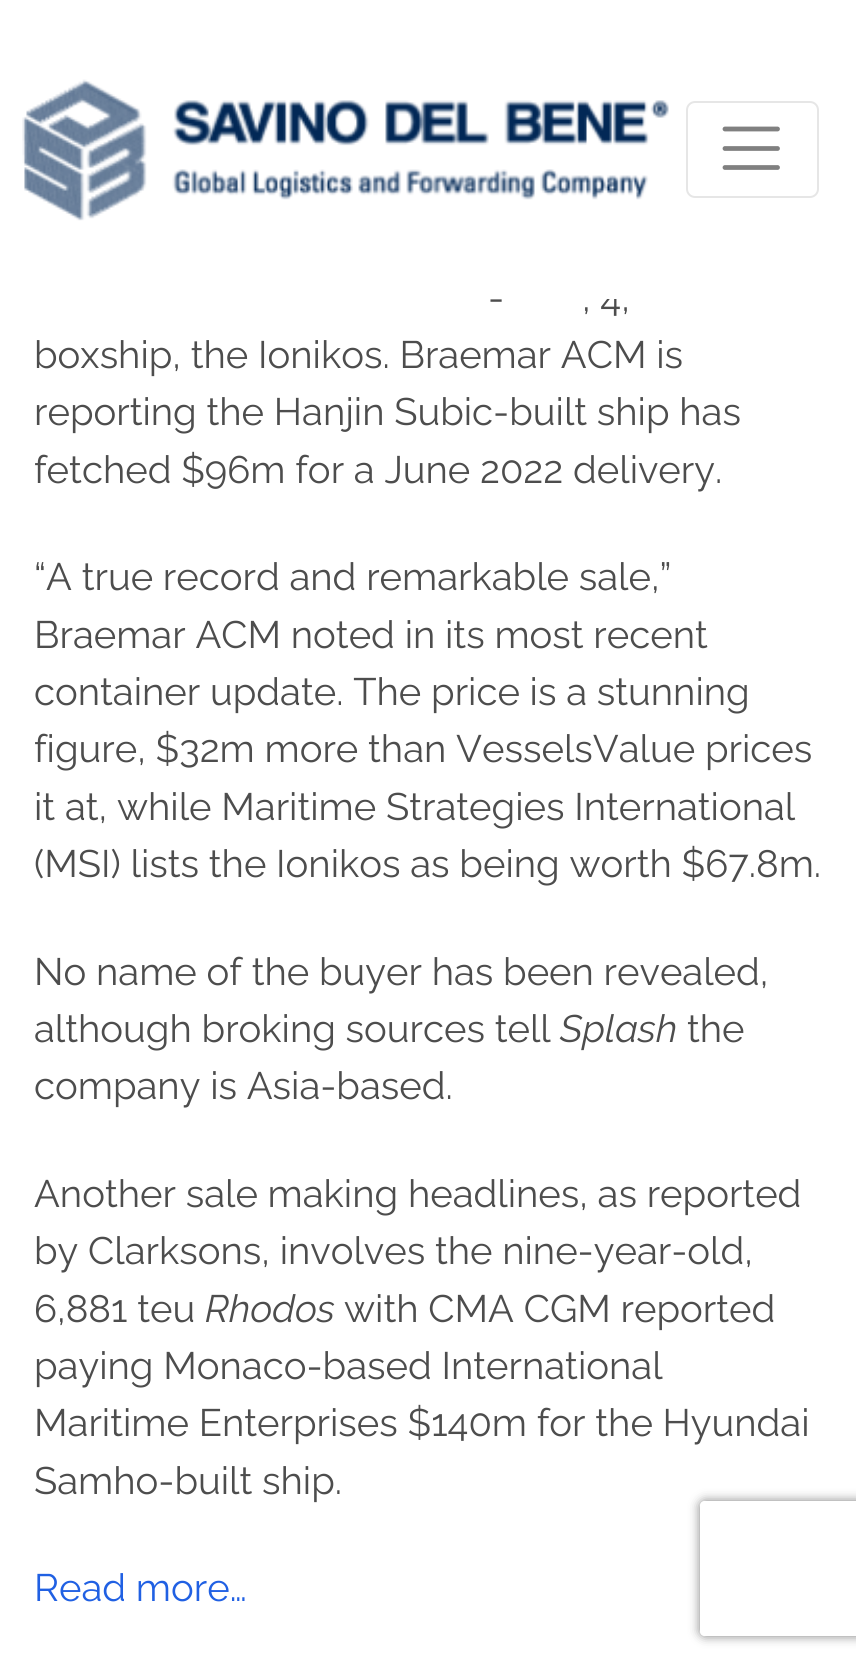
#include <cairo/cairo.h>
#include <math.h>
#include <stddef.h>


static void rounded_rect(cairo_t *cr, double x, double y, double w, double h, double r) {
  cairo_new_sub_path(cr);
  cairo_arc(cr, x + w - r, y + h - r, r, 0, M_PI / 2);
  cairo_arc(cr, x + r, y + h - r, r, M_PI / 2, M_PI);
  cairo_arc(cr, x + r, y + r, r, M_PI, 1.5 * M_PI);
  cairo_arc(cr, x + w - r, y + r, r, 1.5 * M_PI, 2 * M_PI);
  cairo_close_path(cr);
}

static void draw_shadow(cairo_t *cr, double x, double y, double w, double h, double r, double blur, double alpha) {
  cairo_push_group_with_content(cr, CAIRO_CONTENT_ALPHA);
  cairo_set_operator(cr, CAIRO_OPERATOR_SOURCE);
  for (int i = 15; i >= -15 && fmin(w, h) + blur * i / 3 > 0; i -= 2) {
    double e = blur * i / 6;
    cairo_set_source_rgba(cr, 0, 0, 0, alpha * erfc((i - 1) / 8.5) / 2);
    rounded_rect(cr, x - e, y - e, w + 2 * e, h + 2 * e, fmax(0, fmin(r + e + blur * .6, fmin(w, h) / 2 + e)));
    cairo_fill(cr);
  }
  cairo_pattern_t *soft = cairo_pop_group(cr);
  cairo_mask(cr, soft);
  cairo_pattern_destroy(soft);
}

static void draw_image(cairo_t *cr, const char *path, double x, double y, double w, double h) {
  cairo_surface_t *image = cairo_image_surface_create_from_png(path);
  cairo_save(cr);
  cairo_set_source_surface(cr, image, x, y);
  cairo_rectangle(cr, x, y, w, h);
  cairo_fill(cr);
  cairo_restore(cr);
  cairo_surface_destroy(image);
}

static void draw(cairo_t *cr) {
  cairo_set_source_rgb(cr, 1, 1, 1);
  cairo_paint(cr);
  draw_image(cr, "images/1.png", 22, 79, 647, 142);
  rounded_rect(cr, 687, 102, 131, 95, 8);
  cairo_set_source_rgb(cr, 230 / 255.0, 230 / 255.0, 230 / 255.0);
  cairo_stroke(cr);
  cairo_new_path(cr);
  cairo_move_to(cr, 725, 129);
  cairo_line_to(cr, 777.5, 129);
  cairo_move_to(cr, 725, 148.5);
  cairo_line_to(cr, 777.5, 148.5);
  cairo_move_to(cr, 725, 167.5);
  cairo_line_to(cr, 777.5, 167.5);
  cairo_set_source_rgb(cr, 128 / 255.0, 128 / 255.0, 128 / 255.0);
  cairo_set_line_width(cr, 4.8);
  cairo_set_line_cap(cr, CAIRO_LINE_CAP_ROUND);
  cairo_stroke(cr);
  cairo_save(cr);
  cairo_set_fill_rule(cr, CAIRO_FILL_RULE_EVEN_ODD);
  cairo_new_path(cr);
  cairo_move_to(cr, 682, 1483);
  cairo_line_to(cr, 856, 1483);
  cairo_line_to(cr, 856, 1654);
  cairo_line_to(cr, 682, 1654);
  cairo_close_path(cr);
  cairo_move_to(cr, 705, 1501);
  cairo_line_to(cr, 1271, 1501);
  cairo_curve_to(cr, 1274, 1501, 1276, 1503, 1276, 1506);
  cairo_line_to(cr, 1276, 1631);
  cairo_curve_to(cr, 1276, 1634, 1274, 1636, 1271, 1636);
  cairo_line_to(cr, 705, 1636);
  cairo_curve_to(cr, 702, 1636, 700, 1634, 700, 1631);
  cairo_line_to(cr, 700, 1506);
  cairo_curve_to(cr, 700, 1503, 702, 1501, 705, 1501);
  cairo_close_path(cr);
  cairo_clip(cr);
  cairo_set_source_rgb(cr, 128 / 255.0, 128 / 255.0, 128 / 255.0);
  draw_shadow(cr, 700, 1501, 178, 135, 5, 5.5, 1);
  cairo_restore(cr);
  cairo_select_font_face(cr, "Raleway", CAIRO_FONT_SLANT_NORMAL, CAIRO_FONT_WEIGHT_NORMAL);
  cairo_set_font_size(cr, 38.25);
  cairo_set_source_rgb(cr, 77 / 255.0, 77 / 255.0, 77 / 255.0);
  cairo_move_to(cr, 488, 311);
  cairo_show_text(cr, "-");
  cairo_move_to(cr, 582, 311);
  cairo_show_text(cr, ", 4,");
  cairo_set_source_rgb(cr, 1, 1, 1);
  cairo_rectangle(cr, 607, 289, 10, 10);
  cairo_fill(cr);
  cairo_set_source_rgb(cr, 77 / 255.0, 77 / 255.0, 77 / 255.0);
  cairo_move_to(cr, 34, 368);
  cairo_show_text(cr, "boxship, the Ionikos. Braemar ACM is");
  cairo_move_to(cr, 34, 425);
  cairo_show_text(cr, "reporting the Hanjin Subic-built ship has");
  cairo_move_to(cr, 34, 483);
  cairo_show_text(cr, "fetched $96m for a June 2022 delivery.");
  cairo_move_to(cr, 34, 590);
  cairo_show_text(cr, "“A true record and remarkable sale,”");
  cairo_move_to(cr, 34, 648);
  cairo_show_text(cr, "Braemar ACM noted in its most recent");
  cairo_move_to(cr, 34, 705);
  cairo_show_text(cr, "container update. The price is a stunning");
  cairo_move_to(cr, 34, 762);
  cairo_show_text(cr, "figure, $32m more than VesselsValue prices");
  cairo_move_to(cr, 34, 820);
  cairo_show_text(cr, "it at, while Maritime Strategies International");
  cairo_move_to(cr, 34, 877);
  cairo_show_text(cr, "(MSI) lists the Ionikos as being worth $67.8m.");
  cairo_move_to(cr, 34, 985);
  cairo_show_text(cr, "No name of the buyer has been revealed,");
  cairo_move_to(cr, 34, 1042);
  cairo_show_text(cr, "although broking sources tell");
  cairo_select_font_face(cr, "Raleway", CAIRO_FONT_SLANT_ITALIC, CAIRO_FONT_WEIGHT_NORMAL);
  cairo_move_to(cr, 560, 1042);
  cairo_show_text(cr, "Splash");
  cairo_select_font_face(cr, "Raleway", CAIRO_FONT_SLANT_NORMAL, CAIRO_FONT_WEIGHT_NORMAL);
  cairo_move_to(cr, 687, 1042);
  cairo_show_text(cr, "the");
  cairo_move_to(cr, 34, 1099);
  cairo_show_text(cr, "company is Asia-based.");
  cairo_move_to(cr, 34, 1207);
  cairo_show_text(cr, "Another sale making headlines, as reported");
  cairo_move_to(cr, 34, 1264);
  cairo_show_text(cr, "by Clarksons, involves the nine-year-old,");
  cairo_move_to(cr, 34, 1322);
  cairo_show_text(cr, "6,881 teu");
  cairo_select_font_face(cr, "Raleway", CAIRO_FONT_SLANT_ITALIC, CAIRO_FONT_WEIGHT_NORMAL);
  cairo_move_to(cr, 205, 1322);
  cairo_show_text(cr, "Rhodos");
  cairo_select_font_face(cr, "Raleway", CAIRO_FONT_SLANT_NORMAL, CAIRO_FONT_WEIGHT_NORMAL);
  cairo_move_to(cr, 344, 1322);
  cairo_show_text(cr, "with CMA CGM reported");
  cairo_move_to(cr, 34, 1379);
  cairo_show_text(cr, "paying Monaco-based International");
  cairo_move_to(cr, 34, 1436);
  cairo_show_text(cr, "Maritime Enterprises $140m for the Hyundai");
  cairo_move_to(cr, 34, 1494);
  cairo_show_text(cr, "Samho-built ship.");
  cairo_set_source_rgb(cr, 32 / 255.0, 96 / 255.0, 227 / 255.0);
  cairo_move_to(cr, 34, 1601);
  cairo_show_text(cr, "Read more…");
}

int main(void) {
  cairo_surface_t *surface = cairo_image_surface_create(CAIRO_FORMAT_RGB24, 856, 1667);
  cairo_t *cr = cairo_create(surface);
  cairo_font_options_t *options = cairo_font_options_create();
  cairo_font_options_set_hint_metrics(options, CAIRO_HINT_METRICS_OFF);
  cairo_font_options_set_hint_style(options, CAIRO_HINT_STYLE_NONE);
  cairo_set_font_options(cr, options);
  cairo_set_miter_limit(cr, 4);
  draw(cr);
  cairo_surface_write_to_png(surface, "out.png");
  cairo_font_options_destroy(options);
  cairo_destroy(cr);
  cairo_surface_destroy(surface);
  return 0;
}
